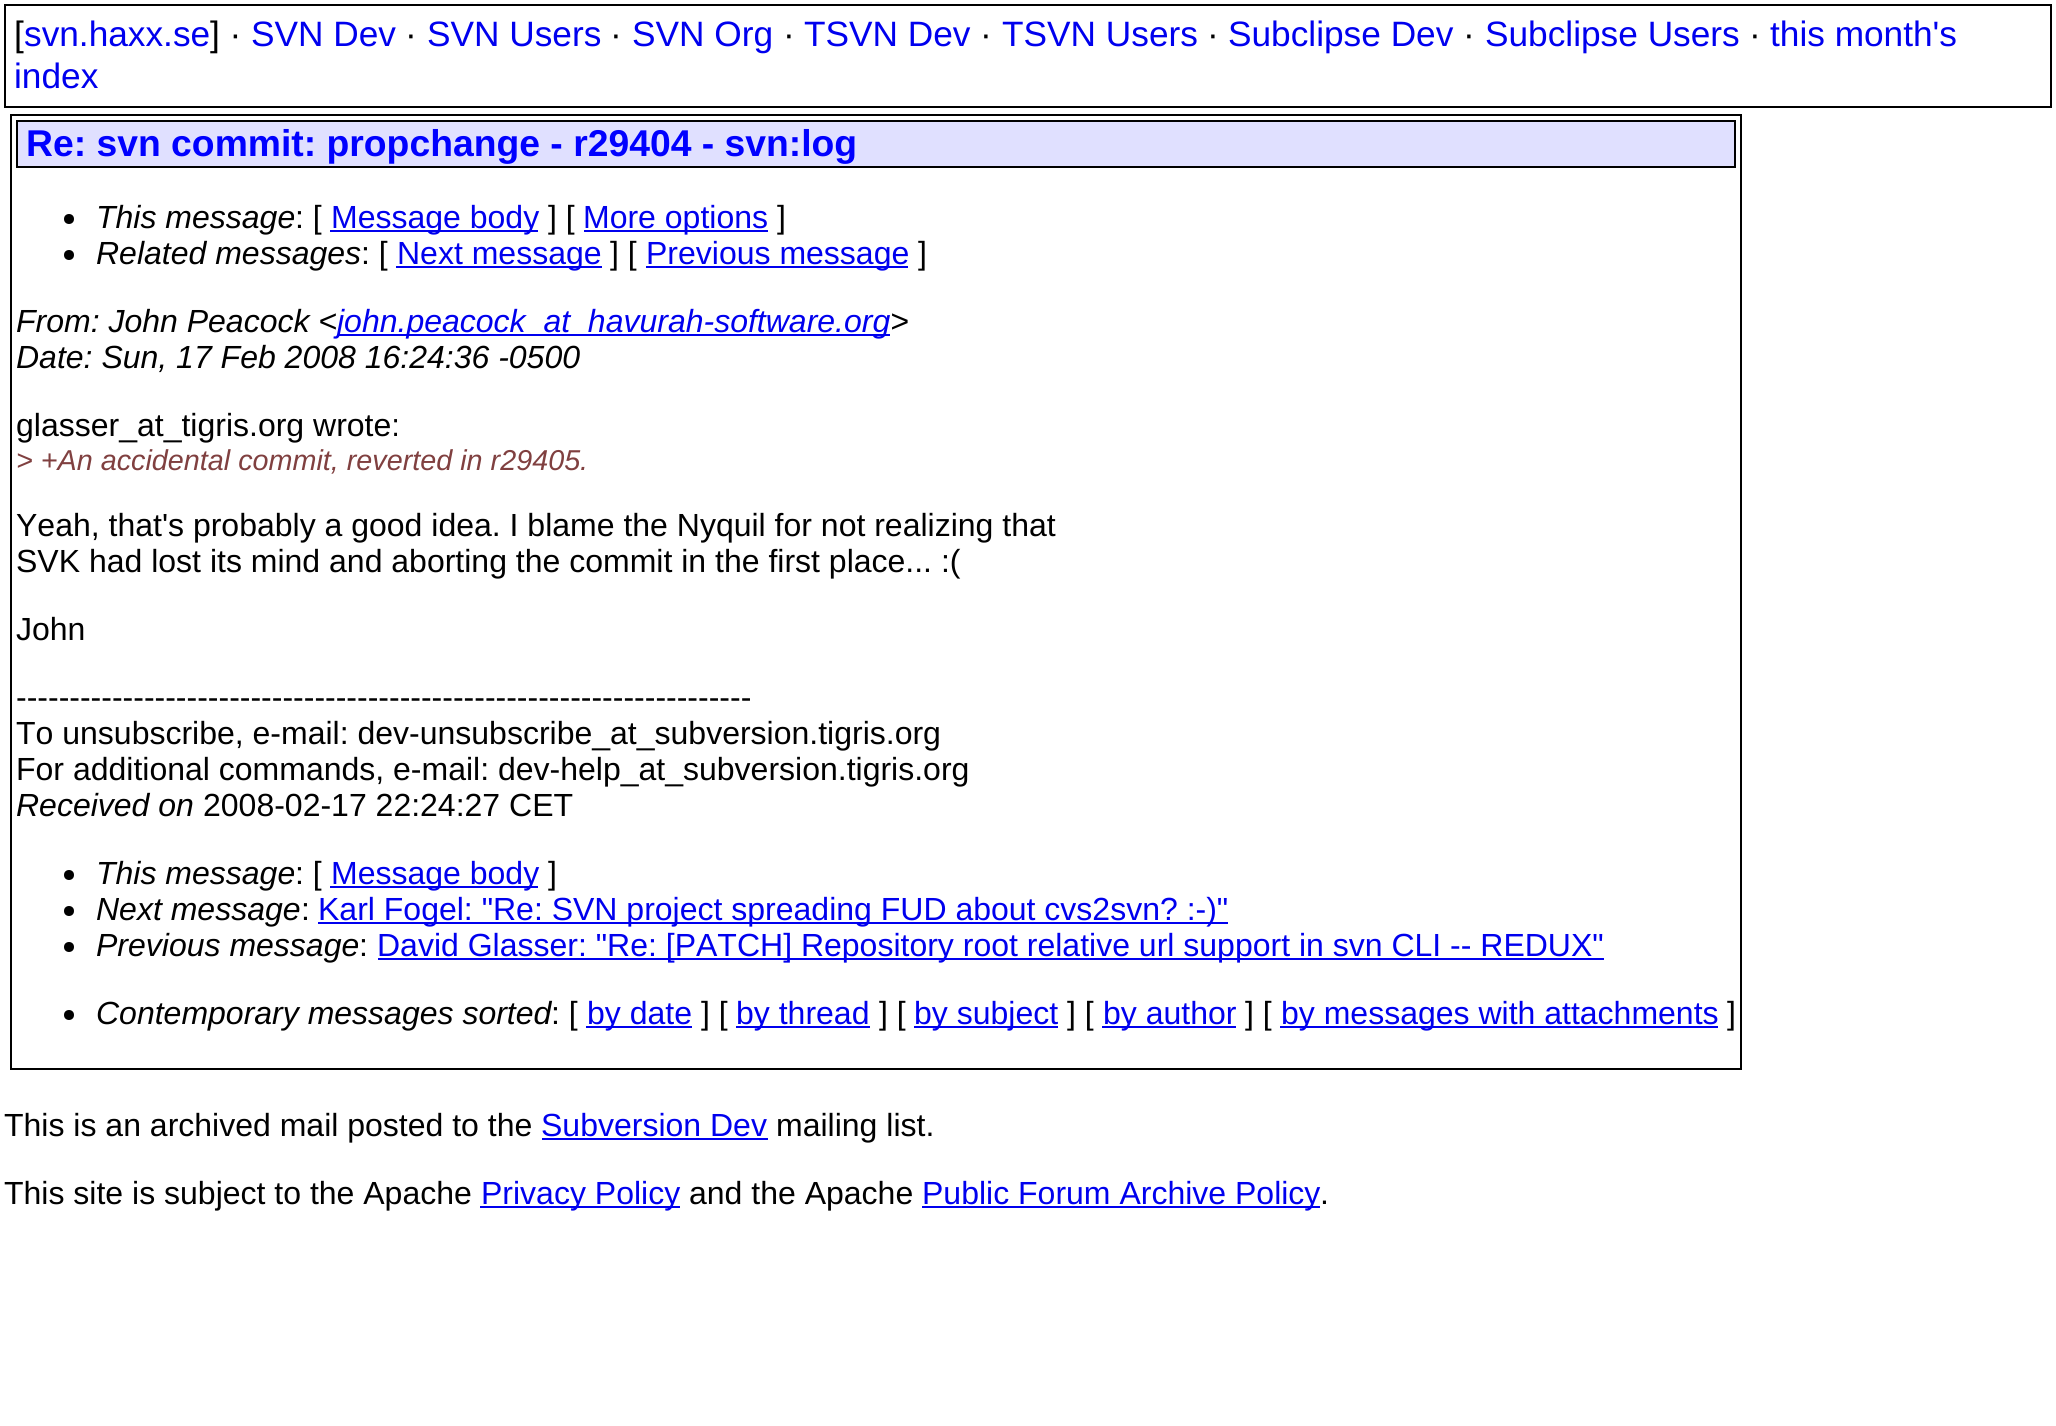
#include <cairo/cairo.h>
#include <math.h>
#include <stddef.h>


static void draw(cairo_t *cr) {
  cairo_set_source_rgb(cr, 1, 1, 1);
  cairo_paint(cr);
  cairo_rectangle(cr, 5, 5, 2046, 102);
  cairo_set_source_rgb(cr, 0, 0, 0);
  cairo_stroke(cr);
  cairo_rectangle(cr, 11, 115, 1730, 954);
  cairo_stroke(cr);
  cairo_set_source_rgb(cr, 224 / 255.0, 224 / 255.0, 1);
  cairo_rectangle(cr, 17, 121, 1718, 46);
  cairo_fill_preserve(cr);
  cairo_set_source_rgb(cr, 0, 0, 0);
  cairo_stroke(cr);
  cairo_arc(cr, 69, 219, 5, 0, 2 * M_PI);
  cairo_fill(cr);
  cairo_set_source_rgb(cr, 0, 0, 238 / 255.0);
  cairo_rectangle(cr, 330, 230, 208, 2);
  cairo_fill(cr);
  cairo_rectangle(cr, 584, 230, 184, 2);
  cairo_fill(cr);
  cairo_set_source_rgb(cr, 0, 0, 0);
  cairo_arc(cr, 69, 255, 5, 0, 2 * M_PI);
  cairo_fill(cr);
  cairo_set_source_rgb(cr, 0, 0, 238 / 255.0);
  cairo_rectangle(cr, 396, 266, 206, 2);
  cairo_fill(cr);
  cairo_rectangle(cr, 646, 266, 262, 2);
  cairo_fill(cr);
  cairo_rectangle(cr, 338, 334, 552, 2);
  cairo_fill(cr);
  cairo_set_source_rgb(cr, 0, 0, 0);
  cairo_arc(cr, 69, 875, 5, 0, 2 * M_PI);
  cairo_fill(cr);
  cairo_set_source_rgb(cr, 0, 0, 238 / 255.0);
  cairo_rectangle(cr, 330, 886, 208, 2);
  cairo_fill(cr);
  cairo_set_source_rgb(cr, 0, 0, 0);
  cairo_arc(cr, 69, 911, 5, 0, 2 * M_PI);
  cairo_fill(cr);
  cairo_set_source_rgb(cr, 0, 0, 238 / 255.0);
  cairo_rectangle(cr, 318, 922, 910, 2);
  cairo_fill(cr);
  cairo_set_source_rgb(cr, 0, 0, 0);
  cairo_arc(cr, 69, 947, 5, 0, 2 * M_PI);
  cairo_fill(cr);
  cairo_set_source_rgb(cr, 0, 0, 238 / 255.0);
  cairo_rectangle(cr, 378, 958, 1226, 2);
  cairo_fill(cr);
  cairo_set_source_rgb(cr, 0, 0, 0);
  cairo_arc(cr, 69, 1015, 5, 0, 2 * M_PI);
  cairo_fill(cr);
  cairo_set_source_rgb(cr, 0, 0, 238 / 255.0);
  cairo_rectangle(cr, 586, 1026, 106, 2);
  cairo_fill(cr);
  cairo_rectangle(cr, 736, 1026, 134, 2);
  cairo_fill(cr);
  cairo_rectangle(cr, 914, 1026, 144, 2);
  cairo_fill(cr);
  cairo_rectangle(cr, 1102, 1026, 134, 2);
  cairo_fill(cr);
  cairo_rectangle(cr, 1280, 1026, 438, 2);
  cairo_fill(cr);
  cairo_rectangle(cr, 542, 1138, 226, 2);
  cairo_fill(cr);
  cairo_rectangle(cr, 480, 1206, 200, 2);
  cairo_fill(cr);
  cairo_rectangle(cr, 922, 1206, 398, 2);
  cairo_fill(cr);
  cairo_select_font_face(cr, "Liberation Sans", CAIRO_FONT_SLANT_NORMAL, CAIRO_FONT_WEIGHT_NORMAL);
  cairo_set_font_size(cr, 35.25);
  cairo_set_source_rgb(cr, 0, 0, 0);
  cairo_move_to(cr, 14, 46);
  cairo_show_text(cr, "[");
  cairo_set_source_rgb(cr, 0, 0, 238 / 255.0);
  cairo_move_to(cr, 24, 46);
  cairo_show_text(cr, "svn.haxx.se");
  cairo_set_source_rgb(cr, 0, 0, 0);
  cairo_move_to(cr, 210, 46);
  cairo_show_text(cr, "] ·");
  cairo_set_source_rgb(cr, 0, 0, 238 / 255.0);
  cairo_move_to(cr, 251, 46);
  cairo_show_text(cr, "SVN Dev");
  cairo_set_source_rgb(cr, 0, 0, 0);
  cairo_move_to(cr, 405, 46);
  cairo_show_text(cr, "·");
  cairo_set_source_rgb(cr, 0, 0, 238 / 255.0);
  cairo_move_to(cr, 427, 46);
  cairo_show_text(cr, "SVN Users");
  cairo_set_source_rgb(cr, 0, 0, 0);
  cairo_move_to(cr, 610, 46);
  cairo_show_text(cr, "·");
  cairo_set_source_rgb(cr, 0, 0, 238 / 255.0);
  cairo_move_to(cr, 632, 46);
  cairo_show_text(cr, "SVN Org");
  cairo_set_source_rgb(cr, 0, 0, 0);
  cairo_move_to(cr, 783, 46);
  cairo_show_text(cr, "·");
  cairo_set_source_rgb(cr, 0, 0, 238 / 255.0);
  cairo_move_to(cr, 804, 46);
  cairo_show_text(cr, "TSVN Dev");
  cairo_set_source_rgb(cr, 0, 0, 0);
  cairo_move_to(cr, 980, 46);
  cairo_show_text(cr, "·");
  cairo_set_source_rgb(cr, 0, 0, 238 / 255.0);
  cairo_move_to(cr, 1002, 46);
  cairo_show_text(cr, "TSVN Users");
  cairo_set_source_rgb(cr, 0, 0, 0);
  cairo_move_to(cr, 1207, 46);
  cairo_show_text(cr, "·");
  cairo_set_source_rgb(cr, 0, 0, 238 / 255.0);
  cairo_move_to(cr, 1228, 46);
  cairo_show_text(cr, "Subclipse Dev");
  cairo_set_source_rgb(cr, 0, 0, 0);
  cairo_move_to(cr, 1463, 46);
  cairo_show_text(cr, "·");
  cairo_set_source_rgb(cr, 0, 0, 238 / 255.0);
  cairo_move_to(cr, 1485, 46);
  cairo_show_text(cr, "Subclipse Users");
  cairo_set_source_rgb(cr, 0, 0, 0);
  cairo_move_to(cr, 1749, 46);
  cairo_show_text(cr, "·");
  cairo_set_source_rgb(cr, 0, 0, 238 / 255.0);
  cairo_move_to(cr, 1770, 46);
  cairo_show_text(cr, "this month's");
  cairo_move_to(cr, 14, 88);
  cairo_show_text(cr, "index");
  cairo_select_font_face(cr, "Liberation Sans", CAIRO_FONT_SLANT_NORMAL, CAIRO_FONT_WEIGHT_BOLD);
  cairo_set_font_size(cr, 37.3);
  cairo_set_source_rgb(cr, 0, 0, 1);
  cairo_move_to(cr, 26, 156);
  cairo_show_text(cr, "Re: svn commit: propchange - r29404 - svn:log");
  cairo_select_font_face(cr, "Liberation Sans", CAIRO_FONT_SLANT_ITALIC, CAIRO_FONT_WEIGHT_NORMAL);
  cairo_set_font_size(cr, 32);
  cairo_set_source_rgb(cr, 0, 0, 0);
  cairo_move_to(cr, 96, 228);
  cairo_show_text(cr, "This message");
  cairo_select_font_face(cr, "Liberation Sans", CAIRO_FONT_SLANT_NORMAL, CAIRO_FONT_WEIGHT_NORMAL);
  cairo_move_to(cr, 295, 228);
  cairo_show_text(cr, ": [");
  cairo_set_source_rgb(cr, 0, 0, 238 / 255.0);
  cairo_move_to(cr, 331, 228);
  cairo_show_text(cr, "Message body");
  cairo_set_source_rgb(cr, 0, 0, 0);
  cairo_move_to(cr, 548, 228);
  cairo_show_text(cr, "] [");
  cairo_set_source_rgb(cr, 0, 0, 238 / 255.0);
  cairo_move_to(cr, 583, 228);
  cairo_show_text(cr, "More options");
  cairo_set_source_rgb(cr, 0, 0, 0);
  cairo_move_to(cr, 777, 228);
  cairo_show_text(cr, "]");
  cairo_select_font_face(cr, "Liberation Sans", CAIRO_FONT_SLANT_ITALIC, CAIRO_FONT_WEIGHT_NORMAL);
  cairo_move_to(cr, 96, 264);
  cairo_show_text(cr, "Related messages");
  cairo_select_font_face(cr, "Liberation Sans", CAIRO_FONT_SLANT_NORMAL, CAIRO_FONT_WEIGHT_NORMAL);
  cairo_move_to(cr, 361, 264);
  cairo_show_text(cr, ": [");
  cairo_set_source_rgb(cr, 0, 0, 238 / 255.0);
  cairo_move_to(cr, 397, 264);
  cairo_show_text(cr, "Next message");
  cairo_set_source_rgb(cr, 0, 0, 0);
  cairo_move_to(cr, 610, 264);
  cairo_show_text(cr, "] [");
  cairo_set_source_rgb(cr, 0, 0, 238 / 255.0);
  cairo_move_to(cr, 646, 264);
  cairo_show_text(cr, "Previous message");
  cairo_set_source_rgb(cr, 0, 0, 0);
  cairo_move_to(cr, 918, 264);
  cairo_show_text(cr, "]");
  cairo_select_font_face(cr, "Liberation Sans", CAIRO_FONT_SLANT_ITALIC, CAIRO_FONT_WEIGHT_NORMAL);
  cairo_move_to(cr, 16, 332);
  cairo_show_text(cr, "From: John Peacock <");
  cairo_set_source_rgb(cr, 0, 0, 238 / 255.0);
  cairo_move_to(cr, 337, 332);
  cairo_show_text(cr, "john.peacock_at_havurah-software.org");
  cairo_set_source_rgb(cr, 0, 0, 0);
  cairo_move_to(cr, 890, 332);
  cairo_show_text(cr, ">");
  cairo_move_to(cr, 16, 368);
  cairo_show_text(cr, "Date: Sun, 17 Feb 2008 16:24:36 -0500");
  cairo_select_font_face(cr, "Liberation Sans", CAIRO_FONT_SLANT_NORMAL, CAIRO_FONT_WEIGHT_NORMAL);
  cairo_move_to(cr, 16, 436);
  cairo_show_text(cr, "glasser_at_tigris.org wrote:");
  cairo_select_font_face(cr, "Liberation Sans", CAIRO_FONT_SLANT_ITALIC, CAIRO_FONT_WEIGHT_NORMAL);
  cairo_set_font_size(cr, 28.75);
  cairo_set_source_rgb(cr, 128 / 255.0, 64 / 255.0, 64 / 255.0);
  cairo_move_to(cr, 16, 470);
  cairo_show_text(cr, "> +An accidental commit, reverted in r29405.");
  cairo_select_font_face(cr, "Liberation Sans", CAIRO_FONT_SLANT_NORMAL, CAIRO_FONT_WEIGHT_NORMAL);
  cairo_set_font_size(cr, 32);
  cairo_set_source_rgb(cr, 0, 0, 0);
  cairo_move_to(cr, 16, 536);
  cairo_show_text(cr, "Yeah, that's probably a good idea. I blame the Nyquil for not realizing that");
  cairo_move_to(cr, 16, 572);
  cairo_show_text(cr, "SVK had lost its mind and aborting the commit in the first place... :(");
  cairo_move_to(cr, 16, 640);
  cairo_show_text(cr, "John");
  cairo_move_to(cr, 16, 708);
  cairo_show_text(cr, "---------------------------------------------------------------------");
  cairo_move_to(cr, 16, 744);
  cairo_show_text(cr, "To unsubscribe, e-mail: dev-unsubscribe_at_subversion.tigris.org");
  cairo_move_to(cr, 16, 780);
  cairo_show_text(cr, "For additional commands, e-mail: dev-help_at_subversion.tigris.org");
  cairo_select_font_face(cr, "Liberation Sans", CAIRO_FONT_SLANT_ITALIC, CAIRO_FONT_WEIGHT_NORMAL);
  cairo_move_to(cr, 16, 816);
  cairo_show_text(cr, "Received on");
  cairo_select_font_face(cr, "Liberation Sans", CAIRO_FONT_SLANT_NORMAL, CAIRO_FONT_WEIGHT_NORMAL);
  cairo_move_to(cr, 203, 816);
  cairo_show_text(cr, "2008-02-17 22:24:27 CET");
  cairo_select_font_face(cr, "Liberation Sans", CAIRO_FONT_SLANT_ITALIC, CAIRO_FONT_WEIGHT_NORMAL);
  cairo_move_to(cr, 96, 884);
  cairo_show_text(cr, "This message");
  cairo_select_font_face(cr, "Liberation Sans", CAIRO_FONT_SLANT_NORMAL, CAIRO_FONT_WEIGHT_NORMAL);
  cairo_move_to(cr, 295, 884);
  cairo_show_text(cr, ": [");
  cairo_set_source_rgb(cr, 0, 0, 238 / 255.0);
  cairo_move_to(cr, 331, 884);
  cairo_show_text(cr, "Message body");
  cairo_set_source_rgb(cr, 0, 0, 0);
  cairo_move_to(cr, 548, 884);
  cairo_show_text(cr, "]");
  cairo_select_font_face(cr, "Liberation Sans", CAIRO_FONT_SLANT_ITALIC, CAIRO_FONT_WEIGHT_NORMAL);
  cairo_move_to(cr, 96, 920);
  cairo_show_text(cr, "Next message");
  cairo_select_font_face(cr, "Liberation Sans", CAIRO_FONT_SLANT_NORMAL, CAIRO_FONT_WEIGHT_NORMAL);
  cairo_move_to(cr, 301, 920);
  cairo_show_text(cr, ":");
  cairo_set_source_rgb(cr, 0, 0, 238 / 255.0);
  cairo_move_to(cr, 318, 920);
  cairo_show_text(cr, "Karl Fogel: \"Re: SVN project spreading FUD about cvs2svn? :-)\"");
  cairo_select_font_face(cr, "Liberation Sans", CAIRO_FONT_SLANT_ITALIC, CAIRO_FONT_WEIGHT_NORMAL);
  cairo_set_source_rgb(cr, 0, 0, 0);
  cairo_move_to(cr, 96, 956);
  cairo_show_text(cr, "Previous message");
  cairo_select_font_face(cr, "Liberation Sans", CAIRO_FONT_SLANT_NORMAL, CAIRO_FONT_WEIGHT_NORMAL);
  cairo_move_to(cr, 359, 956);
  cairo_show_text(cr, ":");
  cairo_set_source_rgb(cr, 0, 0, 238 / 255.0);
  cairo_move_to(cr, 377, 956);
  cairo_show_text(cr, "David Glasser: \"Re: [PATCH] Repository root relative url support in svn CLI -- REDUX\"");
  cairo_select_font_face(cr, "Liberation Sans", CAIRO_FONT_SLANT_ITALIC, CAIRO_FONT_WEIGHT_NORMAL);
  cairo_set_source_rgb(cr, 0, 0, 0);
  cairo_move_to(cr, 96, 1024);
  cairo_show_text(cr, "Contemporary messages sorted");
  cairo_select_font_face(cr, "Liberation Sans", CAIRO_FONT_SLANT_NORMAL, CAIRO_FONT_WEIGHT_NORMAL);
  cairo_move_to(cr, 551, 1024);
  cairo_show_text(cr, ": [");
  cairo_set_source_rgb(cr, 0, 0, 238 / 255.0);
  cairo_move_to(cr, 587, 1024);
  cairo_show_text(cr, "by date");
  cairo_set_source_rgb(cr, 0, 0, 0);
  cairo_move_to(cr, 701, 1024);
  cairo_show_text(cr, "] [");
  cairo_set_source_rgb(cr, 0, 0, 238 / 255.0);
  cairo_move_to(cr, 736, 1024);
  cairo_show_text(cr, "by thread");
  cairo_set_source_rgb(cr, 0, 0, 0);
  cairo_move_to(cr, 879, 1024);
  cairo_show_text(cr, "] [");
  cairo_set_source_rgb(cr, 0, 0, 238 / 255.0);
  cairo_move_to(cr, 914, 1024);
  cairo_show_text(cr, "by subject");
  cairo_set_source_rgb(cr, 0, 0, 0);
  cairo_move_to(cr, 1067, 1024);
  cairo_show_text(cr, "] [");
  cairo_set_source_rgb(cr, 0, 0, 238 / 255.0);
  cairo_move_to(cr, 1103, 1024);
  cairo_show_text(cr, "by author");
  cairo_set_source_rgb(cr, 0, 0, 0);
  cairo_move_to(cr, 1245, 1024);
  cairo_show_text(cr, "] [");
  cairo_set_source_rgb(cr, 0, 0, 238 / 255.0);
  cairo_move_to(cr, 1281, 1024);
  cairo_show_text(cr, "by messages with attachments");
  cairo_set_source_rgb(cr, 0, 0, 0);
  cairo_move_to(cr, 1727, 1024);
  cairo_show_text(cr, "]");
  cairo_move_to(cr, 4, 1136);
  cairo_show_text(cr, "This is an archived mail posted to the");
  cairo_set_source_rgb(cr, 0, 0, 238 / 255.0);
  cairo_move_to(cr, 541, 1136);
  cairo_show_text(cr, "Subversion Dev");
  cairo_set_source_rgb(cr, 0, 0, 0);
  cairo_move_to(cr, 776, 1136);
  cairo_show_text(cr, "mailing list.");
  cairo_move_to(cr, 4, 1204);
  cairo_show_text(cr, "This site is subject to the Apache");
  cairo_set_source_rgb(cr, 0, 0, 238 / 255.0);
  cairo_move_to(cr, 481, 1204);
  cairo_show_text(cr, "Privacy Policy");
  cairo_set_source_rgb(cr, 0, 0, 0);
  cairo_move_to(cr, 689, 1204);
  cairo_show_text(cr, "and the Apache");
  cairo_set_source_rgb(cr, 0, 0, 238 / 255.0);
  cairo_move_to(cr, 922, 1204);
  cairo_show_text(cr, "Public Forum Archive Policy");
  cairo_set_source_rgb(cr, 0, 0, 0);
  cairo_move_to(cr, 1320, 1204);
  cairo_show_text(cr, ".");
}

int main(void) {
  cairo_surface_t *surface = cairo_image_surface_create(CAIRO_FORMAT_RGB24, 2056, 1426);
  cairo_t *cr = cairo_create(surface);
  cairo_font_options_t *options = cairo_font_options_create();
  cairo_font_options_set_hint_metrics(options, CAIRO_HINT_METRICS_OFF);
  cairo_font_options_set_hint_style(options, CAIRO_HINT_STYLE_NONE);
  cairo_set_font_options(cr, options);
  cairo_set_miter_limit(cr, 4);
  draw(cr);
  cairo_surface_write_to_png(surface, "out.png");
  cairo_font_options_destroy(options);
  cairo_destroy(cr);
  cairo_surface_destroy(surface);
  return 0;
}
